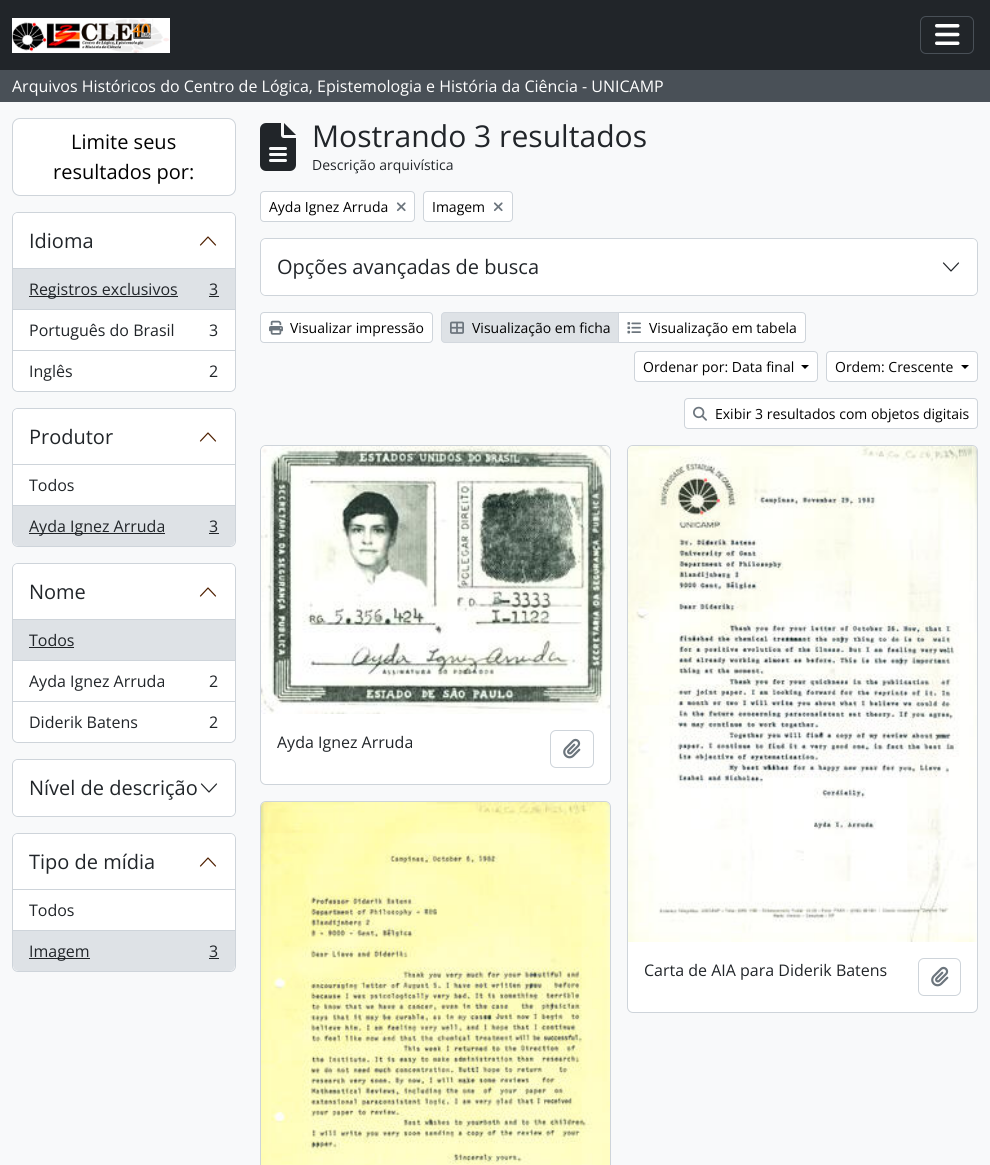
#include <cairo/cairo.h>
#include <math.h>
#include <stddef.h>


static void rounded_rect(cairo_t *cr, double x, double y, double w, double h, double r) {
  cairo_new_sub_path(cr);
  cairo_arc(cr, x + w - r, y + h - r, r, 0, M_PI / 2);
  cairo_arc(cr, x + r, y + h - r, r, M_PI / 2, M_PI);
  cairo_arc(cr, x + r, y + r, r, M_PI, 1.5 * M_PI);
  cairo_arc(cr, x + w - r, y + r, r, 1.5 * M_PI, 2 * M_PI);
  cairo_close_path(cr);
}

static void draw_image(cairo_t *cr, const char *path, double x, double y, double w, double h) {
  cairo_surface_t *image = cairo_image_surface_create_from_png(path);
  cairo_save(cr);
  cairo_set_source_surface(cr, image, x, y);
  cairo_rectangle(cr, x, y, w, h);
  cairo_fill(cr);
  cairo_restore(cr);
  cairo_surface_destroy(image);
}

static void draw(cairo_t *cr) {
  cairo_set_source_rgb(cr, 248 / 255.0, 249 / 255.0, 250 / 255.0);
  cairo_paint(cr);
  cairo_set_source_rgb(cr, 33 / 255.0, 37 / 255.0, 41 / 255.0);
  cairo_rectangle(cr, 0, 0, 990, 70);
  cairo_fill(cr);
  draw_image(cr, "images/1.png", 12, 18, 158, 35);
  rounded_rect(cr, 920.5, 16.5, 53, 37, 5.5);
  cairo_set_source_rgb(cr, 73 / 255.0, 80 / 255.0, 87 / 255.0);
  cairo_set_line_width(cr, 1);
  cairo_stroke(cr);
  draw_image(cr, "images/2.png", 935, 24, 25, 21);
  cairo_rectangle(cr, 0, 70, 990, 32);
  cairo_fill(cr);
  cairo_set_source_rgb(cr, 1, 1, 1);
  rounded_rect(cr, 12.5, 118.5, 223, 77, 7.5);
  cairo_fill_preserve(cr);
  cairo_set_source_rgb(cr, 206 / 255.0, 212 / 255.0, 218 / 255.0);
  cairo_stroke(cr);
  cairo_set_source_rgb(cr, 1, 1, 1);
  rounded_rect(cr, 12.5, 212.5, 223, 179, 5.5);
  cairo_fill_preserve(cr);
  cairo_set_source_rgb(cr, 206 / 255.0, 212 / 255.0, 218 / 255.0);
  cairo_stroke(cr);
  cairo_set_source_rgb(cr, 1, 1, 1);
  cairo_new_path(cr);
  cairo_move_to(cr, 18, 213);
  cairo_line_to(cr, 230, 213);
  cairo_curve_to(cr, 233, 213, 235, 215, 235, 218);
  cairo_line_to(cr, 235, 269);
  cairo_line_to(cr, 13, 269);
  cairo_line_to(cr, 13, 218);
  cairo_curve_to(cr, 13, 215, 15, 213, 18, 213);
  cairo_close_path(cr);
  cairo_fill(cr);
  cairo_set_source_rgb(cr, 206 / 255.0, 212 / 255.0, 218 / 255.0);
  cairo_rectangle(cr, 13, 268, 222, 1);
  cairo_fill(cr);
  cairo_new_path(cr);
  cairo_move_to(cr, 215.5, 245);
  cairo_line_to(cr, 208, 237);
  cairo_line_to(cr, 200.5, 245);
  cairo_set_source_rgb(cr, 78 / 255.0, 31 / 255.0, 0);
  cairo_set_line_width(cr, 1.2);
  cairo_set_line_cap(cr, CAIRO_LINE_CAP_ROUND);
  cairo_set_line_join(cr, CAIRO_LINE_JOIN_ROUND);
  cairo_stroke(cr);
  cairo_set_source_rgb(cr, 222 / 255.0, 226 / 255.0, 230 / 255.0);
  cairo_rectangle(cr, 13, 269, 222, 40);
  cairo_fill(cr);
  cairo_set_source_rgb(cr, 206 / 255.0, 212 / 255.0, 218 / 255.0);
  cairo_rectangle(cr, 13, 309, 222, 1);
  cairo_fill(cr);
  cairo_set_source_rgb(cr, 33 / 255.0, 37 / 255.0, 41 / 255.0);
  cairo_rectangle(cr, 29, 296, 149, 1);
  cairo_fill(cr);
  cairo_rectangle(cr, 209, 296, 10, 1);
  cairo_fill(cr);
  cairo_set_source_rgb(cr, 206 / 255.0, 212 / 255.0, 218 / 255.0);
  cairo_rectangle(cr, 13, 350, 222, 1);
  cairo_fill(cr);
  cairo_set_source_rgb(cr, 1, 1, 1);
  cairo_new_path(cr);
  cairo_move_to(cr, 13, 351);
  cairo_line_to(cr, 235, 351);
  cairo_line_to(cr, 235, 385);
  cairo_curve_to(cr, 235, 388.5, 232.5, 391, 229, 391);
  cairo_line_to(cr, 19, 391);
  cairo_curve_to(cr, 15.5, 391, 13, 388.5, 13, 385);
  cairo_close_path(cr);
  cairo_fill(cr);
  rounded_rect(cr, 12.5, 408.5, 223, 138, 5.5);
  cairo_fill_preserve(cr);
  cairo_set_source_rgb(cr, 206 / 255.0, 212 / 255.0, 218 / 255.0);
  cairo_set_line_width(cr, 1);
  cairo_set_line_cap(cr, CAIRO_LINE_CAP_BUTT);
  cairo_set_line_join(cr, CAIRO_LINE_JOIN_MITER);
  cairo_stroke(cr);
  cairo_set_source_rgb(cr, 1, 1, 1);
  cairo_new_path(cr);
  cairo_move_to(cr, 18, 409);
  cairo_line_to(cr, 230, 409);
  cairo_curve_to(cr, 233, 409, 235, 411, 235, 414);
  cairo_line_to(cr, 235, 465);
  cairo_line_to(cr, 13, 465);
  cairo_line_to(cr, 13, 414);
  cairo_curve_to(cr, 13, 411, 15, 409, 18, 409);
  cairo_close_path(cr);
  cairo_fill(cr);
  cairo_set_source_rgb(cr, 206 / 255.0, 212 / 255.0, 218 / 255.0);
  cairo_rectangle(cr, 13, 464, 222, 1);
  cairo_fill(cr);
  cairo_new_path(cr);
  cairo_move_to(cr, 215.5, 441);
  cairo_line_to(cr, 208, 433);
  cairo_line_to(cr, 200.5, 441);
  cairo_set_source_rgb(cr, 78 / 255.0, 31 / 255.0, 0);
  cairo_set_line_width(cr, 1.2);
  cairo_set_line_cap(cr, CAIRO_LINE_CAP_ROUND);
  cairo_set_line_join(cr, CAIRO_LINE_JOIN_ROUND);
  cairo_stroke(cr);
  cairo_set_source_rgb(cr, 206 / 255.0, 212 / 255.0, 218 / 255.0);
  cairo_rectangle(cr, 13, 505, 222, 1);
  cairo_fill(cr);
  cairo_set_source_rgb(cr, 222 / 255.0, 226 / 255.0, 230 / 255.0);
  cairo_new_path(cr);
  cairo_move_to(cr, 13, 506);
  cairo_line_to(cr, 235, 506);
  cairo_line_to(cr, 235, 540);
  cairo_curve_to(cr, 235, 543.5, 232.5, 546, 229, 546);
  cairo_line_to(cr, 19, 546);
  cairo_curve_to(cr, 15.5, 546, 13, 543.5, 13, 540);
  cairo_close_path(cr);
  cairo_fill(cr);
  cairo_set_source_rgb(cr, 33 / 255.0, 37 / 255.0, 41 / 255.0);
  cairo_rectangle(cr, 29, 533, 136, 1);
  cairo_fill(cr);
  cairo_rectangle(cr, 209, 533, 10, 1);
  cairo_fill(cr);
  cairo_set_source_rgb(cr, 1, 1, 1);
  rounded_rect(cr, 12.5, 563.5, 223, 179, 5.5);
  cairo_fill_preserve(cr);
  cairo_set_source_rgb(cr, 206 / 255.0, 212 / 255.0, 218 / 255.0);
  cairo_set_line_width(cr, 1);
  cairo_set_line_cap(cr, CAIRO_LINE_CAP_BUTT);
  cairo_set_line_join(cr, CAIRO_LINE_JOIN_MITER);
  cairo_stroke(cr);
  cairo_set_source_rgb(cr, 1, 1, 1);
  cairo_new_path(cr);
  cairo_move_to(cr, 18, 564);
  cairo_line_to(cr, 230, 564);
  cairo_curve_to(cr, 233, 564, 235, 566, 235, 569);
  cairo_line_to(cr, 235, 620);
  cairo_line_to(cr, 13, 620);
  cairo_line_to(cr, 13, 569);
  cairo_curve_to(cr, 13, 566, 15, 564, 18, 564);
  cairo_close_path(cr);
  cairo_fill(cr);
  cairo_set_source_rgb(cr, 206 / 255.0, 212 / 255.0, 218 / 255.0);
  cairo_rectangle(cr, 13, 619, 222, 1);
  cairo_fill(cr);
  cairo_new_path(cr);
  cairo_move_to(cr, 215.5, 596);
  cairo_line_to(cr, 208, 588);
  cairo_line_to(cr, 200.5, 596);
  cairo_set_source_rgb(cr, 78 / 255.0, 31 / 255.0, 0);
  cairo_set_line_width(cr, 1.2);
  cairo_set_line_cap(cr, CAIRO_LINE_CAP_ROUND);
  cairo_set_line_join(cr, CAIRO_LINE_JOIN_ROUND);
  cairo_stroke(cr);
  cairo_set_source_rgb(cr, 222 / 255.0, 226 / 255.0, 230 / 255.0);
  cairo_rectangle(cr, 13, 620, 222, 40);
  cairo_fill(cr);
  cairo_set_source_rgb(cr, 206 / 255.0, 212 / 255.0, 218 / 255.0);
  cairo_rectangle(cr, 13, 660, 222, 1);
  cairo_fill(cr);
  cairo_set_source_rgb(cr, 33 / 255.0, 37 / 255.0, 41 / 255.0);
  cairo_rectangle(cr, 29, 647, 45, 1);
  cairo_fill(cr);
  cairo_set_source_rgb(cr, 206 / 255.0, 212 / 255.0, 218 / 255.0);
  cairo_rectangle(cr, 13, 701, 222, 1);
  cairo_fill(cr);
  cairo_set_source_rgb(cr, 1, 1, 1);
  cairo_new_path(cr);
  cairo_move_to(cr, 13, 702);
  cairo_line_to(cr, 235, 702);
  cairo_line_to(cr, 235, 736);
  cairo_curve_to(cr, 235, 739.5, 232.5, 742, 229, 742);
  cairo_line_to(cr, 19, 742);
  cairo_curve_to(cr, 15.5, 742, 13, 739.5, 13, 736);
  cairo_close_path(cr);
  cairo_fill(cr);
  rounded_rect(cr, 12.5, 759.5, 223, 57, 5.5);
  cairo_set_source_rgb(cr, 206 / 255.0, 212 / 255.0, 218 / 255.0);
  cairo_set_line_width(cr, 1);
  cairo_set_line_cap(cr, CAIRO_LINE_CAP_BUTT);
  cairo_set_line_join(cr, CAIRO_LINE_JOIN_MITER);
  cairo_stroke(cr);
  cairo_set_source_rgb(cr, 1, 1, 1);
  rounded_rect(cr, 13, 760, 222, 56, 5);
  cairo_fill(cr);
  cairo_new_path(cr);
  cairo_move_to(cr, 201.5, 784);
  cairo_line_to(cr, 209, 792);
  cairo_line_to(cr, 216.5, 784);
  cairo_set_source_rgb(cr, 33 / 255.0, 37 / 255.0, 41 / 255.0);
  cairo_set_line_width(cr, 1.2);
  cairo_set_line_cap(cr, CAIRO_LINE_CAP_ROUND);
  cairo_set_line_join(cr, CAIRO_LINE_JOIN_ROUND);
  cairo_stroke(cr);
  cairo_set_source_rgb(cr, 1, 1, 1);
  rounded_rect(cr, 12.5, 833.5, 223, 138, 5.5);
  cairo_fill_preserve(cr);
  cairo_set_source_rgb(cr, 206 / 255.0, 212 / 255.0, 218 / 255.0);
  cairo_set_line_width(cr, 1);
  cairo_set_line_cap(cr, CAIRO_LINE_CAP_BUTT);
  cairo_set_line_join(cr, CAIRO_LINE_JOIN_MITER);
  cairo_stroke(cr);
  cairo_set_source_rgb(cr, 1, 1, 1);
  cairo_new_path(cr);
  cairo_move_to(cr, 18, 834);
  cairo_line_to(cr, 230, 834);
  cairo_curve_to(cr, 233, 834, 235, 836, 235, 839);
  cairo_line_to(cr, 235, 890);
  cairo_line_to(cr, 13, 890);
  cairo_line_to(cr, 13, 839);
  cairo_curve_to(cr, 13, 836, 15, 834, 18, 834);
  cairo_close_path(cr);
  cairo_fill(cr);
  cairo_set_source_rgb(cr, 206 / 255.0, 212 / 255.0, 218 / 255.0);
  cairo_rectangle(cr, 13, 889, 222, 1);
  cairo_fill(cr);
  cairo_new_path(cr);
  cairo_move_to(cr, 215.5, 866);
  cairo_line_to(cr, 208, 858);
  cairo_line_to(cr, 200.5, 866);
  cairo_set_source_rgb(cr, 78 / 255.0, 31 / 255.0, 0);
  cairo_set_line_width(cr, 1.2);
  cairo_set_line_cap(cr, CAIRO_LINE_CAP_ROUND);
  cairo_set_line_join(cr, CAIRO_LINE_JOIN_ROUND);
  cairo_stroke(cr);
  cairo_set_source_rgb(cr, 206 / 255.0, 212 / 255.0, 218 / 255.0);
  cairo_rectangle(cr, 13, 930, 222, 1);
  cairo_fill(cr);
  cairo_set_source_rgb(cr, 222 / 255.0, 226 / 255.0, 230 / 255.0);
  cairo_new_path(cr);
  cairo_move_to(cr, 13, 931);
  cairo_line_to(cr, 235, 931);
  cairo_line_to(cr, 235, 965);
  cairo_curve_to(cr, 235, 968.5, 232.5, 971, 229, 971);
  cairo_line_to(cr, 19, 971);
  cairo_curve_to(cr, 15.5, 971, 13, 968.5, 13, 965);
  cairo_close_path(cr);
  cairo_fill(cr);
  cairo_set_source_rgb(cr, 33 / 255.0, 37 / 255.0, 41 / 255.0);
  cairo_rectangle(cr, 29, 958, 61, 1);
  cairo_fill(cr);
  cairo_rectangle(cr, 209, 958, 10, 1);
  cairo_fill(cr);
  draw_image(cr, "images/3.png", 260, 123, 36, 48);
  cairo_set_source_rgb(cr, 1, 1, 1);
  rounded_rect(cr, 260.5, 191.5, 154, 30, 3.5);
  cairo_fill_preserve(cr);
  cairo_set_source_rgb(cr, 206 / 255.0, 212 / 255.0, 218 / 255.0);
  cairo_set_line_width(cr, 1);
  cairo_set_line_cap(cr, CAIRO_LINE_CAP_BUTT);
  cairo_set_line_join(cr, CAIRO_LINE_JOIN_MITER);
  cairo_stroke(cr);
  draw_image(cr, "images/4.png", 396, 202, 10, 10);
  cairo_set_source_rgb(cr, 1, 1, 1);
  rounded_rect(cr, 423.5, 191.5, 89, 30, 3.5);
  cairo_fill_preserve(cr);
  cairo_set_source_rgb(cr, 206 / 255.0, 212 / 255.0, 218 / 255.0);
  cairo_stroke(cr);
  draw_image(cr, "images/4.png", 493, 202, 10, 10);
  rounded_rect(cr, 260.5, 238.5, 717, 57, 5.5);
  cairo_stroke(cr);
  cairo_set_source_rgb(cr, 1, 1, 1);
  rounded_rect(cr, 261, 239, 716, 56, 5);
  cairo_fill(cr);
  cairo_new_path(cr);
  cairo_move_to(cr, 943.5, 263);
  cairo_line_to(cr, 951, 271);
  cairo_line_to(cr, 958.5, 263);
  cairo_set_source_rgb(cr, 33 / 255.0, 37 / 255.0, 41 / 255.0);
  cairo_set_line_width(cr, 1.2);
  cairo_set_line_cap(cr, CAIRO_LINE_CAP_ROUND);
  cairo_set_line_join(cr, CAIRO_LINE_JOIN_ROUND);
  cairo_stroke(cr);
  cairo_set_source_rgb(cr, 1, 1, 1);
  rounded_rect(cr, 260.5, 312.5, 172, 30, 3.5);
  cairo_fill_preserve(cr);
  cairo_set_source_rgb(cr, 206 / 255.0, 212 / 255.0, 218 / 255.0);
  cairo_set_line_width(cr, 1);
  cairo_set_line_cap(cr, CAIRO_LINE_CAP_BUTT);
  cairo_set_line_join(cr, CAIRO_LINE_JOIN_MITER);
  cairo_stroke(cr);
  draw_image(cr, "images/5.png", 269, 320, 14, 15);
  cairo_set_source_rgb(cr, 1, 1, 1);
  cairo_new_path(cr);
  cairo_move_to(cr, 618.5, 312.5);
  cairo_line_to(cr, 802, 312.5);
  cairo_curve_to(cr, 804, 312.5, 805.5, 314, 805.5, 316);
  cairo_line_to(cr, 805.5, 339);
  cairo_curve_to(cr, 805.5, 341, 804, 342.5, 802, 342.5);
  cairo_line_to(cr, 618.5, 342.5);
  cairo_close_path(cr);
  cairo_fill_preserve(cr);
  cairo_set_source_rgb(cr, 206 / 255.0, 212 / 255.0, 218 / 255.0);
  cairo_stroke(cr);
  cairo_set_source_rgb(cr, 222 / 255.0, 226 / 255.0, 230 / 255.0);
  cairo_new_path(cr);
  cairo_move_to(cr, 445, 312.5);
  cairo_line_to(cr, 618.5, 312.5);
  cairo_line_to(cr, 618.5, 342.5);
  cairo_line_to(cr, 445, 342.5);
  cairo_curve_to(cr, 443, 342.5, 441.5, 341, 441.5, 339);
  cairo_line_to(cr, 441.5, 316);
  cairo_curve_to(cr, 441.5, 314, 443, 312.5, 445, 312.5);
  cairo_close_path(cr);
  cairo_fill_preserve(cr);
  cairo_set_source_rgb(cr, 211 / 255.0, 216 / 255.0, 222 / 255.0);
  cairo_stroke(cr);
  draw_image(cr, "images/6.png", 450, 321, 14, 13);
  draw_image(cr, "images/7.png", 627, 322, 14, 12);
  cairo_set_source_rgb(cr, 1, 1, 1);
  rounded_rect(cr, 634.5, 351.5, 183, 30, 3.5);
  cairo_fill_preserve(cr);
  cairo_set_source_rgb(cr, 206 / 255.0, 212 / 255.0, 218 / 255.0);
  cairo_stroke(cr);
  cairo_set_source_rgb(cr, 0, 0, 0);
  cairo_new_path(cr);
  cairo_move_to(cr, 801, 365);
  cairo_line_to(cr, 809, 365);
  cairo_line_to(cr, 805, 369);
  cairo_close_path(cr);
  cairo_fill(cr);
  cairo_set_source_rgb(cr, 1, 1, 1);
  rounded_rect(cr, 826.5, 351.5, 151, 30, 3.5);
  cairo_fill_preserve(cr);
  cairo_set_source_rgb(cr, 206 / 255.0, 212 / 255.0, 218 / 255.0);
  cairo_stroke(cr);
  cairo_set_source_rgb(cr, 0, 0, 0);
  cairo_new_path(cr);
  cairo_move_to(cr, 961, 365);
  cairo_line_to(cr, 969, 365);
  cairo_line_to(cr, 965, 369);
  cairo_close_path(cr);
  cairo_fill(cr);
  cairo_set_source_rgb(cr, 1, 1, 1);
  rounded_rect(cr, 684.5, 398.5, 293, 30, 3.5);
  cairo_fill_preserve(cr);
  cairo_set_source_rgb(cr, 206 / 255.0, 212 / 255.0, 218 / 255.0);
  cairo_stroke(cr);
  draw_image(cr, "images/8.png", 693, 406, 14, 15);
  cairo_set_source_rgb(cr, 1, 1, 1);
  rounded_rect(cr, 260.5, 445.5, 350, 339, 5.5);
  cairo_fill_preserve(cr);
  cairo_set_source_rgb(cr, 206 / 255.0, 212 / 255.0, 218 / 255.0);
  cairo_stroke(cr);
  draw_image(cr, "images/9.png", 261, 446, 349, 268);
  rounded_rect(cr, 550.5, 730.5, 43, 37, 5.5);
  cairo_stroke(cr);
  draw_image(cr, "images/10.png", 563, 738, 18, 21);
  rounded_rect(cr, 260.5, 801.5, 350, 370, 5.5);
  cairo_stroke(cr);
  draw_image(cr, "images/11.png", 261, 802, 349, 363);
  cairo_set_source_rgb(cr, 1, 1, 1);
  rounded_rect(cr, 627.5, 445.5, 350, 567, 5.5);
  cairo_fill_preserve(cr);
  cairo_set_source_rgb(cr, 206 / 255.0, 212 / 255.0, 218 / 255.0);
  cairo_stroke(cr);
  draw_image(cr, "images/12.png", 628, 446, 349, 496);
  rounded_rect(cr, 918.5, 958.5, 42, 37, 5.5);
  cairo_stroke(cr);
  draw_image(cr, "images/10.png", 931, 966, 18, 21);
  cairo_select_font_face(cr, "Open Sans", CAIRO_FONT_SLANT_NORMAL, CAIRO_FONT_WEIGHT_NORMAL);
  cairo_set_font_size(cr, 16);
  cairo_set_source_rgb(cr, 1, 1, 1);
  cairo_move_to(cr, 12, 92);
  cairo_show_text(cr, "Arquivos Históricos do Centro de Lógica, Epistemologia e História da Ciência - UNICAMP");
  cairo_set_font_size(cr, 20);
  cairo_set_source_rgb(cr, 0, 0, 0);
  cairo_move_to(cr, 71, 149);
  cairo_show_text(cr, "Limite seus");
  cairo_move_to(cr, 53, 179);
  cairo_show_text(cr, "resultados por:");
  cairo_set_source_rgb(cr, 33 / 255.0, 37 / 255.0, 41 / 255.0);
  cairo_move_to(cr, 29, 248);
  cairo_show_text(cr, "Idioma");
  cairo_set_font_size(cr, 16);
  cairo_move_to(cr, 29, 295);
  cairo_show_text(cr, "Registros exclusivos");
  cairo_move_to(cr, 209, 295);
  cairo_show_text(cr, "3");
  cairo_move_to(cr, 29, 336);
  cairo_show_text(cr, "Português do Brasil");
  cairo_move_to(cr, 209, 336);
  cairo_show_text(cr, "3");
  cairo_move_to(cr, 29, 377);
  cairo_show_text(cr, "Inglês");
  cairo_move_to(cr, 209, 377);
  cairo_show_text(cr, "2");
  cairo_set_font_size(cr, 20);
  cairo_move_to(cr, 29, 444);
  cairo_show_text(cr, "Produtor");
  cairo_set_font_size(cr, 16);
  cairo_move_to(cr, 29, 491);
  cairo_show_text(cr, "Todos");
  cairo_move_to(cr, 29, 532);
  cairo_show_text(cr, "Ayda Ignez Arruda");
  cairo_move_to(cr, 209, 532);
  cairo_show_text(cr, "3");
  cairo_set_font_size(cr, 20);
  cairo_move_to(cr, 29, 599);
  cairo_show_text(cr, "Nome");
  cairo_set_font_size(cr, 16);
  cairo_move_to(cr, 29, 646);
  cairo_show_text(cr, "Todos");
  cairo_move_to(cr, 29, 687);
  cairo_show_text(cr, "Ayda Ignez Arruda");
  cairo_move_to(cr, 209, 687);
  cairo_show_text(cr, "2");
  cairo_move_to(cr, 29, 728);
  cairo_show_text(cr, "Diderik Batens");
  cairo_move_to(cr, 209, 728);
  cairo_show_text(cr, "2");
  cairo_set_font_size(cr, 20);
  cairo_move_to(cr, 29, 795);
  cairo_show_text(cr, "Nível de descrição");
  cairo_move_to(cr, 29, 869);
  cairo_show_text(cr, "Tipo de mídia");
  cairo_set_font_size(cr, 16);
  cairo_move_to(cr, 29, 916);
  cairo_show_text(cr, "Todos");
  cairo_move_to(cr, 29, 957);
  cairo_show_text(cr, "Imagem");
  cairo_move_to(cr, 209, 957);
  cairo_show_text(cr, "3");
  cairo_set_font_size(cr, 30.1);
  cairo_move_to(cr, 312, 147);
  cairo_show_text(cr, "Mostrando 3 resultados");
  cairo_set_font_size(cr, 14);
  cairo_move_to(cr, 312, 170);
  cairo_show_text(cr, "Descrição arquivística");
  cairo_set_source_rgb(cr, 0, 0, 0);
  cairo_move_to(cr, 269, 212);
  cairo_show_text(cr, "Ayda Ignez Arruda");
  cairo_move_to(cr, 432, 212);
  cairo_show_text(cr, "Imagem");
  cairo_set_font_size(cr, 20);
  cairo_set_source_rgb(cr, 33 / 255.0, 37 / 255.0, 41 / 255.0);
  cairo_move_to(cr, 277, 274);
  cairo_show_text(cr, "Opções avançadas de busca");
  cairo_set_font_size(cr, 14);
  cairo_set_source_rgb(cr, 0, 0, 0);
  cairo_move_to(cr, 290, 333);
  cairo_show_text(cr, "Visualizar impressão");
  cairo_move_to(cr, 472, 333);
  cairo_show_text(cr, "Visualização em ficha");
  cairo_move_to(cr, 649, 333);
  cairo_show_text(cr, "Visualização em tabela");
  cairo_move_to(cr, 643, 372);
  cairo_show_text(cr, "Ordenar por: Data final");
  cairo_move_to(cr, 835, 372);
  cairo_show_text(cr, "Ordem: Crescente");
  cairo_move_to(cr, 715, 419);
  cairo_show_text(cr, "Exibir 3 resultados com objetos digitais");
  cairo_set_font_size(cr, 16);
  cairo_set_source_rgb(cr, 33 / 255.0, 37 / 255.0, 41 / 255.0);
  cairo_move_to(cr, 277, 748);
  cairo_show_text(cr, "Ayda Ignez Arruda");
  cairo_move_to(cr, 644, 976);
  cairo_show_text(cr, "Carta de AIA para Diderik Batens");
}

int main(void) {
  cairo_surface_t *surface = cairo_image_surface_create(CAIRO_FORMAT_RGB24, 990, 1165);
  cairo_t *cr = cairo_create(surface);
  cairo_font_options_t *options = cairo_font_options_create();
  cairo_font_options_set_hint_metrics(options, CAIRO_HINT_METRICS_OFF);
  cairo_font_options_set_hint_style(options, CAIRO_HINT_STYLE_NONE);
  cairo_set_font_options(cr, options);
  cairo_set_miter_limit(cr, 4);
  draw(cr);
  cairo_surface_write_to_png(surface, "out.png");
  cairo_font_options_destroy(options);
  cairo_destroy(cr);
  cairo_surface_destroy(surface);
  return 0;
}
